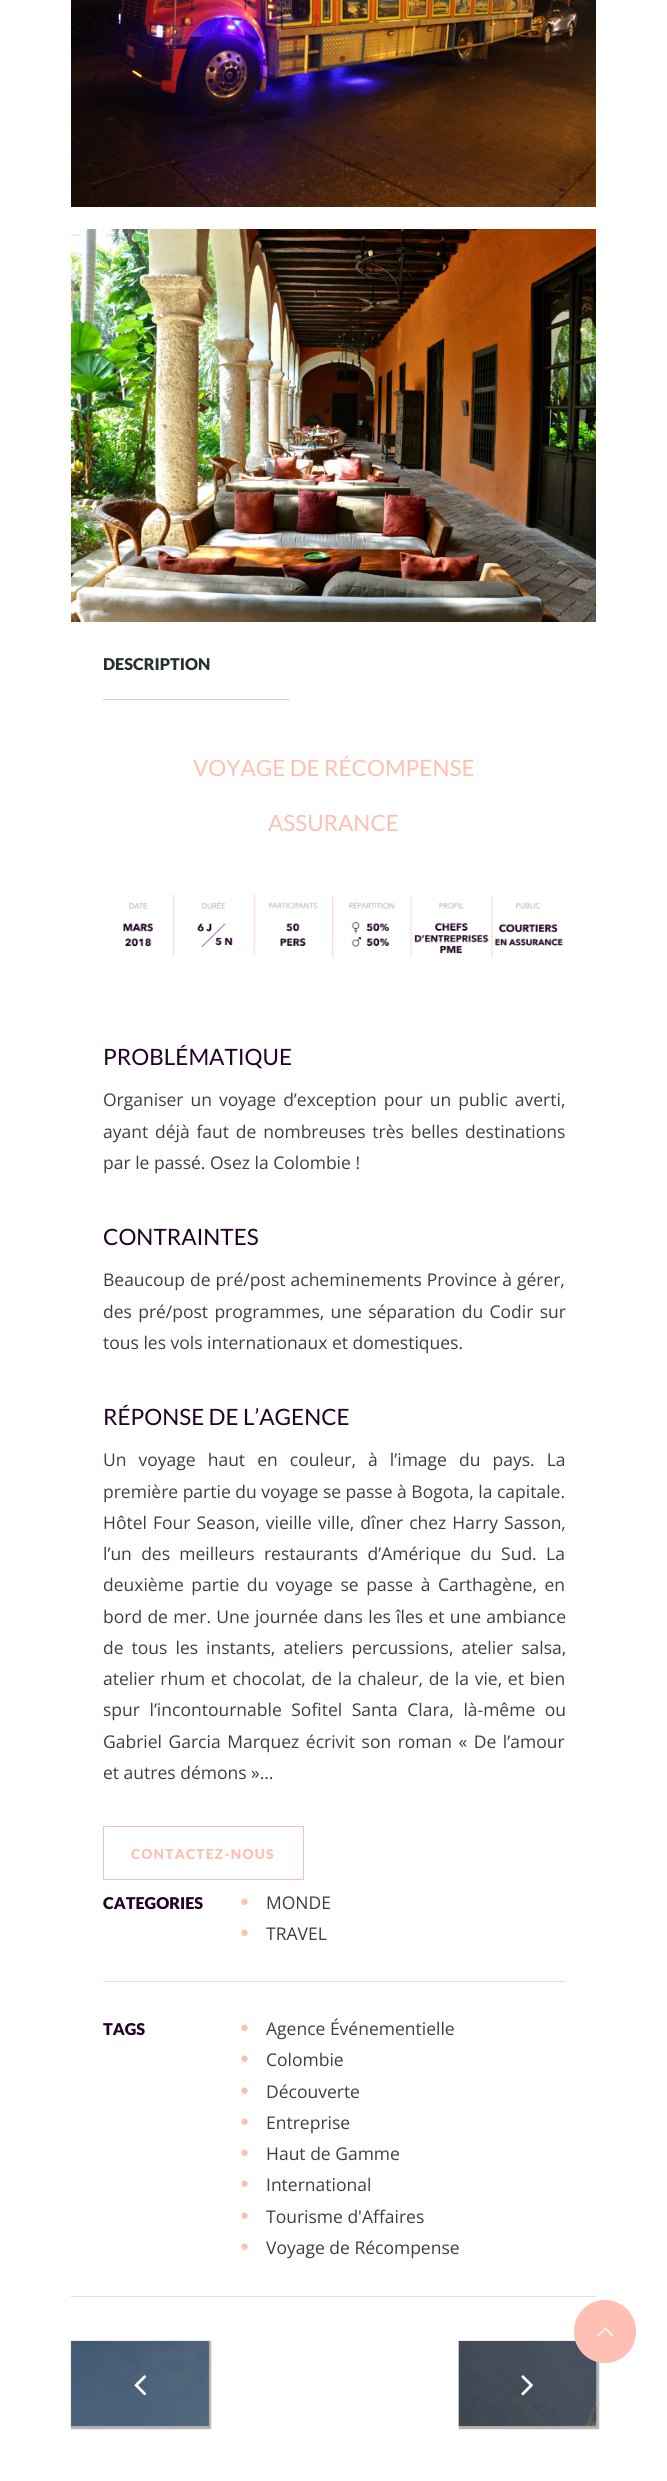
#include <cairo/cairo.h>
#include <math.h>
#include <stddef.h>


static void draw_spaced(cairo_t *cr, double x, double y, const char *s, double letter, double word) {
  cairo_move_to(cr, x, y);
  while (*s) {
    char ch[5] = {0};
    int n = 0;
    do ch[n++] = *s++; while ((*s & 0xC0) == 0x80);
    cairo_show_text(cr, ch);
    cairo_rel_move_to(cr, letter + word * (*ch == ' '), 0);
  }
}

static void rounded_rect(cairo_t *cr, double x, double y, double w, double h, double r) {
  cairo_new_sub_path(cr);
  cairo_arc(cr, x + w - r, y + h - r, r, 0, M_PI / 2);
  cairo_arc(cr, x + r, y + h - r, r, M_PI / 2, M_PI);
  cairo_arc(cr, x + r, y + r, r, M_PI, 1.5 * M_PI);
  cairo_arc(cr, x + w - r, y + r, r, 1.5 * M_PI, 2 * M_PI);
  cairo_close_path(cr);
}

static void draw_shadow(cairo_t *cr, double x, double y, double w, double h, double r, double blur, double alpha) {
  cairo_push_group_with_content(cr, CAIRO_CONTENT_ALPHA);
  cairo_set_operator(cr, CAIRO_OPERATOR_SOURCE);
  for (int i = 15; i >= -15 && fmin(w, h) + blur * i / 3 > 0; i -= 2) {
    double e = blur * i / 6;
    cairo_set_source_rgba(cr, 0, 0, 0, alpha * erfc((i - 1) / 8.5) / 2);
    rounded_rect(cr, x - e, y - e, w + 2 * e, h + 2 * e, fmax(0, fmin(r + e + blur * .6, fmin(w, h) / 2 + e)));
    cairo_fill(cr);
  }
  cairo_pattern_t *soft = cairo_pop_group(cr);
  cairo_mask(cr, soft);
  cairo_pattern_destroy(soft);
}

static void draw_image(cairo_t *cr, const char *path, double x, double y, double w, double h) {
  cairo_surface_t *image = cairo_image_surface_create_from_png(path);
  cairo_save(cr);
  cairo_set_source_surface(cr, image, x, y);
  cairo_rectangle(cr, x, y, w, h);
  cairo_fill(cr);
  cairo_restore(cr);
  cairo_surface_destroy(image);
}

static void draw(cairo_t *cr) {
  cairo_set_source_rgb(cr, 1, 1, 1);
  cairo_paint(cr);
  draw_image(cr, "images/1.png", 71, 0, 525, 207);
  draw_image(cr, "images/2.png", 71, 229, 525, 393);
  cairo_set_source_rgb(cr, 224 / 255.0, 224 / 255.0, 224 / 255.0);
  cairo_rectangle(cr, 71, 2296, 525, 1);
  cairo_fill(cr);
  cairo_set_source_rgb(cr, 1, 192 / 255.0, 180 / 255.0);
  cairo_rectangle(cr, 103, 699, 187, 1);
  cairo_fill(cr);
  draw_image(cr, "images/3.png", 123, 894, 441, 64);
  cairo_rectangle(cr, 103.5, 1826.5, 200, 53);
  cairo_set_line_width(cr, 1);
  cairo_stroke(cr);
  cairo_set_source_rgb(cr, 224 / 255.0, 224 / 255.0, 224 / 255.0);
  cairo_rectangle(cr, 103, 1981, 462, 1);
  cairo_fill(cr);
  cairo_set_source_rgb(cr, 175 / 255.0, 175 / 255.0, 175 / 255.0);
  draw_shadow(cr, 71, 2341, 140, 88, 0, 0.5, 1);
  draw_image(cr, "images/4.png", 71, 2341, 138, 85);
  cairo_set_source_rgba(cr, 62 / 255.0, 62 / 255.0, 62 / 255.0, 0.55);
  cairo_rectangle(cr, 71, 2341, 138, 85);
  cairo_fill(cr);
  draw_image(cr, "images/5.png", 134, 2375, 13, 21);
  cairo_set_source_rgb(cr, 175 / 255.0, 175 / 255.0, 175 / 255.0);
  draw_shadow(cr, 459, 2341, 140, 88, 0, 0.5, 1);
  draw_image(cr, "images/6.png", 458, 2341, 139, 85);
  draw_image(cr, "images/7.png", 521, 2375, 12, 21);
  cairo_set_source_rgb(cr, 1, 192 / 255.0, 180 / 255.0);
  rounded_rect(cr, 574, 2300, 62, 63, 31);
  cairo_fill(cr);
  draw_image(cr, "images/8.png", 597, 2327, 16, 10);
  cairo_select_font_face(cr, "Lato Black", CAIRO_FONT_SLANT_NORMAL, CAIRO_FONT_WEIGHT_NORMAL);
  cairo_set_font_size(cr, 16.25);
  cairo_set_source_rgb(cr, 40 / 255.0, 48 / 255.0, 51 / 255.0);
  cairo_move_to(cr, 103, 670);
  cairo_show_text(cr, "DESCRIPTION");
  cairo_select_font_face(cr, "Lato", CAIRO_FONT_SLANT_NORMAL, CAIRO_FONT_WEIGHT_NORMAL);
  cairo_set_font_size(cr, 22.5);
  cairo_set_source_rgb(cr, 1, 192 / 255.0, 180 / 255.0);
  cairo_move_to(cr, 193, 776);
  cairo_show_text(cr, "VOYAGE DE RÉCOMPENSE");
  cairo_move_to(cr, 268, 831);
  cairo_show_text(cr, "ASSURANCE");
  cairo_set_source_rgb(cr, 33 / 255.0, 1 / 255.0, 37 / 255.0);
  cairo_move_to(cr, 103, 1065);
  cairo_show_text(cr, "PROBLÉMATIQUE");
  cairo_select_font_face(cr, "Open Sans", CAIRO_FONT_SLANT_NORMAL, CAIRO_FONT_WEIGHT_NORMAL);
  cairo_set_font_size(cr, 17.5);
  cairo_set_source_rgb(cr, 68 / 255.0, 58 / 255.0, 68 / 255.0);
  draw_spaced(cr, 103, 1106, "Organiser un voyage d’exception pour un public averti,", 0, 2.5);
  draw_spaced(cr, 103, 1138, "ayant déjà faut de nombreuses très belles destinations", 0, 2.25);
  cairo_move_to(cr, 103, 1169);
  cairo_show_text(cr, "par le passé. Osez la Colombie !");
  cairo_select_font_face(cr, "Lato", CAIRO_FONT_SLANT_NORMAL, CAIRO_FONT_WEIGHT_NORMAL);
  cairo_set_font_size(cr, 22.5);
  cairo_set_source_rgb(cr, 33 / 255.0, 1 / 255.0, 37 / 255.0);
  cairo_move_to(cr, 103, 1245);
  cairo_show_text(cr, "CONTRAINTES");
  cairo_select_font_face(cr, "Open Sans", CAIRO_FONT_SLANT_NORMAL, CAIRO_FONT_WEIGHT_NORMAL);
  cairo_set_font_size(cr, 17.5);
  cairo_set_source_rgb(cr, 68 / 255.0, 58 / 255.0, 68 / 255.0);
  draw_spaced(cr, 103, 1286, "Beaucoup de pré/post acheminements Province à gérer,", 0, 0.5);
  draw_spaced(cr, 103, 1318, "des pré/post programmes, une séparation du Codir sur", 0, 1.75);
  cairo_move_to(cr, 103, 1349);
  cairo_show_text(cr, "tous les vols internationaux et domestiques.");
  cairo_select_font_face(cr, "Lato", CAIRO_FONT_SLANT_NORMAL, CAIRO_FONT_WEIGHT_NORMAL);
  cairo_set_font_size(cr, 22.5);
  cairo_set_source_rgb(cr, 33 / 255.0, 1 / 255.0, 37 / 255.0);
  cairo_move_to(cr, 103, 1425);
  cairo_show_text(cr, "RÉPONSE DE L’AGENCE");
  cairo_select_font_face(cr, "Open Sans", CAIRO_FONT_SLANT_NORMAL, CAIRO_FONT_WEIGHT_NORMAL);
  cairo_set_font_size(cr, 17.5);
  cairo_set_source_rgb(cr, 68 / 255.0, 58 / 255.0, 68 / 255.0);
  draw_spaced(cr, 103, 1466, "Un voyage haut en couleur, à l’image du pays. La", 0, 7.5);
  cairo_move_to(cr, 103, 1498);
  cairo_show_text(cr, "première partie du voyage se passe à Bogota, la capitale.");
  draw_spaced(cr, 103, 1529, "Hôtel Four Season, vieille ville, dîner chez Harry Sasson,", 0, 1.5);
  draw_spaced(cr, 103, 1560, "l’un des meilleurs restaurants d’Amérique du Sud. La", 0, 4.75);
  draw_spaced(cr, 103, 1591, "deuxième partie du voyage se passe à Carthagène, en", 0, 3);
  draw_spaced(cr, 103, 1623, "bord de mer. Une journée dans les îles et une ambiance", 0, 0.75);
  draw_spaced(cr, 103, 1654, "de tous les instants, ateliers percussions, atelier salsa,", 0, 3.5);
  draw_spaced(cr, 103, 1685, "atelier rhum et chocolat, de la chaleur, de la vie, et bien", 0, 1.1);
  draw_spaced(cr, 103, 1716, "spur l’incontournable Sofitel Santa Clara, là-même ou", 0, 5);
  draw_spaced(cr, 103, 1748, "Gabriel Garcia Marquez écrivit son roman « De l’amour", 0, 2);
  cairo_move_to(cr, 103, 1779);
  cairo_show_text(cr, "et autres démons »…");
  cairo_select_font_face(cr, "Lato Black", CAIRO_FONT_SLANT_NORMAL, CAIRO_FONT_WEIGHT_NORMAL);
  cairo_set_font_size(cr, 13.75);
  cairo_set_source_rgb(cr, 1, 192 / 255.0, 180 / 255.0);
  draw_spaced(cr, 131, 1859, "CONTACTEZ-NOUS", 1.25, 0);
  cairo_set_font_size(cr, 16.25);
  cairo_set_source_rgb(cr, 33 / 255.0, 1 / 255.0, 37 / 255.0);
  cairo_move_to(cr, 103, 1909);
  cairo_show_text(cr, "CATEGORIES");
  cairo_select_font_face(cr, "Liberation Sans", CAIRO_FONT_SLANT_NORMAL, CAIRO_FONT_WEIGHT_NORMAL);
  cairo_set_font_size(cr, 15);
  cairo_set_source_rgb(cr, 1, 192 / 255.0, 180 / 255.0);
  cairo_move_to(cr, 240, 1906);
  cairo_show_text(cr, "●");
  cairo_select_font_face(cr, "Open Sans", CAIRO_FONT_SLANT_NORMAL, CAIRO_FONT_WEIGHT_NORMAL);
  cairo_set_font_size(cr, 17.5);
  cairo_set_source_rgb(cr, 68 / 255.0, 58 / 255.0, 68 / 255.0);
  cairo_move_to(cr, 266, 1909);
  cairo_show_text(cr, "MONDE");
  cairo_select_font_face(cr, "Liberation Sans", CAIRO_FONT_SLANT_NORMAL, CAIRO_FONT_WEIGHT_NORMAL);
  cairo_set_font_size(cr, 15);
  cairo_set_source_rgb(cr, 1, 192 / 255.0, 180 / 255.0);
  cairo_move_to(cr, 240, 1937);
  cairo_show_text(cr, "●");
  cairo_select_font_face(cr, "Open Sans", CAIRO_FONT_SLANT_NORMAL, CAIRO_FONT_WEIGHT_NORMAL);
  cairo_set_font_size(cr, 17.5);
  cairo_set_source_rgb(cr, 68 / 255.0, 58 / 255.0, 68 / 255.0);
  cairo_move_to(cr, 266, 1940);
  cairo_show_text(cr, "TRAVEL");
  cairo_select_font_face(cr, "Lato Black", CAIRO_FONT_SLANT_NORMAL, CAIRO_FONT_WEIGHT_NORMAL);
  cairo_set_font_size(cr, 16.25);
  cairo_set_source_rgb(cr, 33 / 255.0, 1 / 255.0, 37 / 255.0);
  cairo_move_to(cr, 103, 2035);
  cairo_show_text(cr, "TAGS");
  cairo_select_font_face(cr, "Liberation Sans", CAIRO_FONT_SLANT_NORMAL, CAIRO_FONT_WEIGHT_NORMAL);
  cairo_set_font_size(cr, 15);
  cairo_set_source_rgb(cr, 1, 192 / 255.0, 180 / 255.0);
  cairo_move_to(cr, 240, 2032);
  cairo_show_text(cr, "●");
  cairo_select_font_face(cr, "Open Sans", CAIRO_FONT_SLANT_NORMAL, CAIRO_FONT_WEIGHT_NORMAL);
  cairo_set_font_size(cr, 17.5);
  cairo_set_source_rgb(cr, 68 / 255.0, 58 / 255.0, 68 / 255.0);
  cairo_move_to(cr, 266, 2035);
  cairo_show_text(cr, "Agence Événementielle");
  cairo_select_font_face(cr, "Liberation Sans", CAIRO_FONT_SLANT_NORMAL, CAIRO_FONT_WEIGHT_NORMAL);
  cairo_set_font_size(cr, 15);
  cairo_set_source_rgb(cr, 1, 192 / 255.0, 180 / 255.0);
  cairo_move_to(cr, 240, 2063);
  cairo_show_text(cr, "●");
  cairo_select_font_face(cr, "Open Sans", CAIRO_FONT_SLANT_NORMAL, CAIRO_FONT_WEIGHT_NORMAL);
  cairo_set_font_size(cr, 17.5);
  cairo_set_source_rgb(cr, 68 / 255.0, 58 / 255.0, 68 / 255.0);
  cairo_move_to(cr, 266, 2066);
  cairo_show_text(cr, "Colombie");
  cairo_select_font_face(cr, "Liberation Sans", CAIRO_FONT_SLANT_NORMAL, CAIRO_FONT_WEIGHT_NORMAL);
  cairo_set_font_size(cr, 15);
  cairo_set_source_rgb(cr, 1, 192 / 255.0, 180 / 255.0);
  cairo_move_to(cr, 240, 2095);
  cairo_show_text(cr, "●");
  cairo_select_font_face(cr, "Open Sans", CAIRO_FONT_SLANT_NORMAL, CAIRO_FONT_WEIGHT_NORMAL);
  cairo_set_font_size(cr, 17.5);
  cairo_set_source_rgb(cr, 68 / 255.0, 58 / 255.0, 68 / 255.0);
  cairo_move_to(cr, 266, 2098);
  cairo_show_text(cr, "Découverte");
  cairo_select_font_face(cr, "Liberation Sans", CAIRO_FONT_SLANT_NORMAL, CAIRO_FONT_WEIGHT_NORMAL);
  cairo_set_font_size(cr, 15);
  cairo_set_source_rgb(cr, 1, 192 / 255.0, 180 / 255.0);
  cairo_move_to(cr, 240, 2126);
  cairo_show_text(cr, "●");
  cairo_select_font_face(cr, "Open Sans", CAIRO_FONT_SLANT_NORMAL, CAIRO_FONT_WEIGHT_NORMAL);
  cairo_set_font_size(cr, 17.5);
  cairo_set_source_rgb(cr, 68 / 255.0, 58 / 255.0, 68 / 255.0);
  cairo_move_to(cr, 266, 2129);
  cairo_show_text(cr, "Entreprise");
  cairo_select_font_face(cr, "Liberation Sans", CAIRO_FONT_SLANT_NORMAL, CAIRO_FONT_WEIGHT_NORMAL);
  cairo_set_font_size(cr, 15);
  cairo_set_source_rgb(cr, 1, 192 / 255.0, 180 / 255.0);
  cairo_move_to(cr, 240, 2157);
  cairo_show_text(cr, "●");
  cairo_select_font_face(cr, "Open Sans", CAIRO_FONT_SLANT_NORMAL, CAIRO_FONT_WEIGHT_NORMAL);
  cairo_set_font_size(cr, 17.5);
  cairo_set_source_rgb(cr, 68 / 255.0, 58 / 255.0, 68 / 255.0);
  cairo_move_to(cr, 266, 2160);
  cairo_show_text(cr, "Haut de Gamme");
  cairo_select_font_face(cr, "Liberation Sans", CAIRO_FONT_SLANT_NORMAL, CAIRO_FONT_WEIGHT_NORMAL);
  cairo_set_font_size(cr, 15);
  cairo_set_source_rgb(cr, 1, 192 / 255.0, 180 / 255.0);
  cairo_move_to(cr, 240, 2188);
  cairo_show_text(cr, "●");
  cairo_select_font_face(cr, "Open Sans", CAIRO_FONT_SLANT_NORMAL, CAIRO_FONT_WEIGHT_NORMAL);
  cairo_set_font_size(cr, 17.5);
  cairo_set_source_rgb(cr, 68 / 255.0, 58 / 255.0, 68 / 255.0);
  cairo_move_to(cr, 266, 2191);
  cairo_show_text(cr, "International");
  cairo_select_font_face(cr, "Liberation Sans", CAIRO_FONT_SLANT_NORMAL, CAIRO_FONT_WEIGHT_NORMAL);
  cairo_set_font_size(cr, 15);
  cairo_set_source_rgb(cr, 1, 192 / 255.0, 180 / 255.0);
  cairo_move_to(cr, 240, 2220);
  cairo_show_text(cr, "●");
  cairo_select_font_face(cr, "Open Sans", CAIRO_FONT_SLANT_NORMAL, CAIRO_FONT_WEIGHT_NORMAL);
  cairo_set_font_size(cr, 17.5);
  cairo_set_source_rgb(cr, 68 / 255.0, 58 / 255.0, 68 / 255.0);
  cairo_move_to(cr, 266, 2223);
  cairo_show_text(cr, "Tourisme d'Affaires");
  cairo_select_font_face(cr, "Liberation Sans", CAIRO_FONT_SLANT_NORMAL, CAIRO_FONT_WEIGHT_NORMAL);
  cairo_set_font_size(cr, 15);
  cairo_set_source_rgb(cr, 1, 192 / 255.0, 180 / 255.0);
  cairo_move_to(cr, 240, 2251);
  cairo_show_text(cr, "●");
  cairo_select_font_face(cr, "Open Sans", CAIRO_FONT_SLANT_NORMAL, CAIRO_FONT_WEIGHT_NORMAL);
  cairo_set_font_size(cr, 17.5);
  cairo_set_source_rgb(cr, 68 / 255.0, 58 / 255.0, 68 / 255.0);
  cairo_move_to(cr, 266, 2254);
  cairo_show_text(cr, "Voyage de Récompense");
}

int main(void) {
  cairo_surface_t *surface = cairo_image_surface_create(CAIRO_FORMAT_RGB24, 667, 2481);
  cairo_t *cr = cairo_create(surface);
  cairo_font_options_t *options = cairo_font_options_create();
  cairo_font_options_set_hint_metrics(options, CAIRO_HINT_METRICS_OFF);
  cairo_font_options_set_hint_style(options, CAIRO_HINT_STYLE_NONE);
  cairo_set_font_options(cr, options);
  cairo_set_miter_limit(cr, 4);
  draw(cr);
  cairo_surface_write_to_png(surface, "out.png");
  cairo_font_options_destroy(options);
  cairo_destroy(cr);
  cairo_surface_destroy(surface);
  return 0;
}
